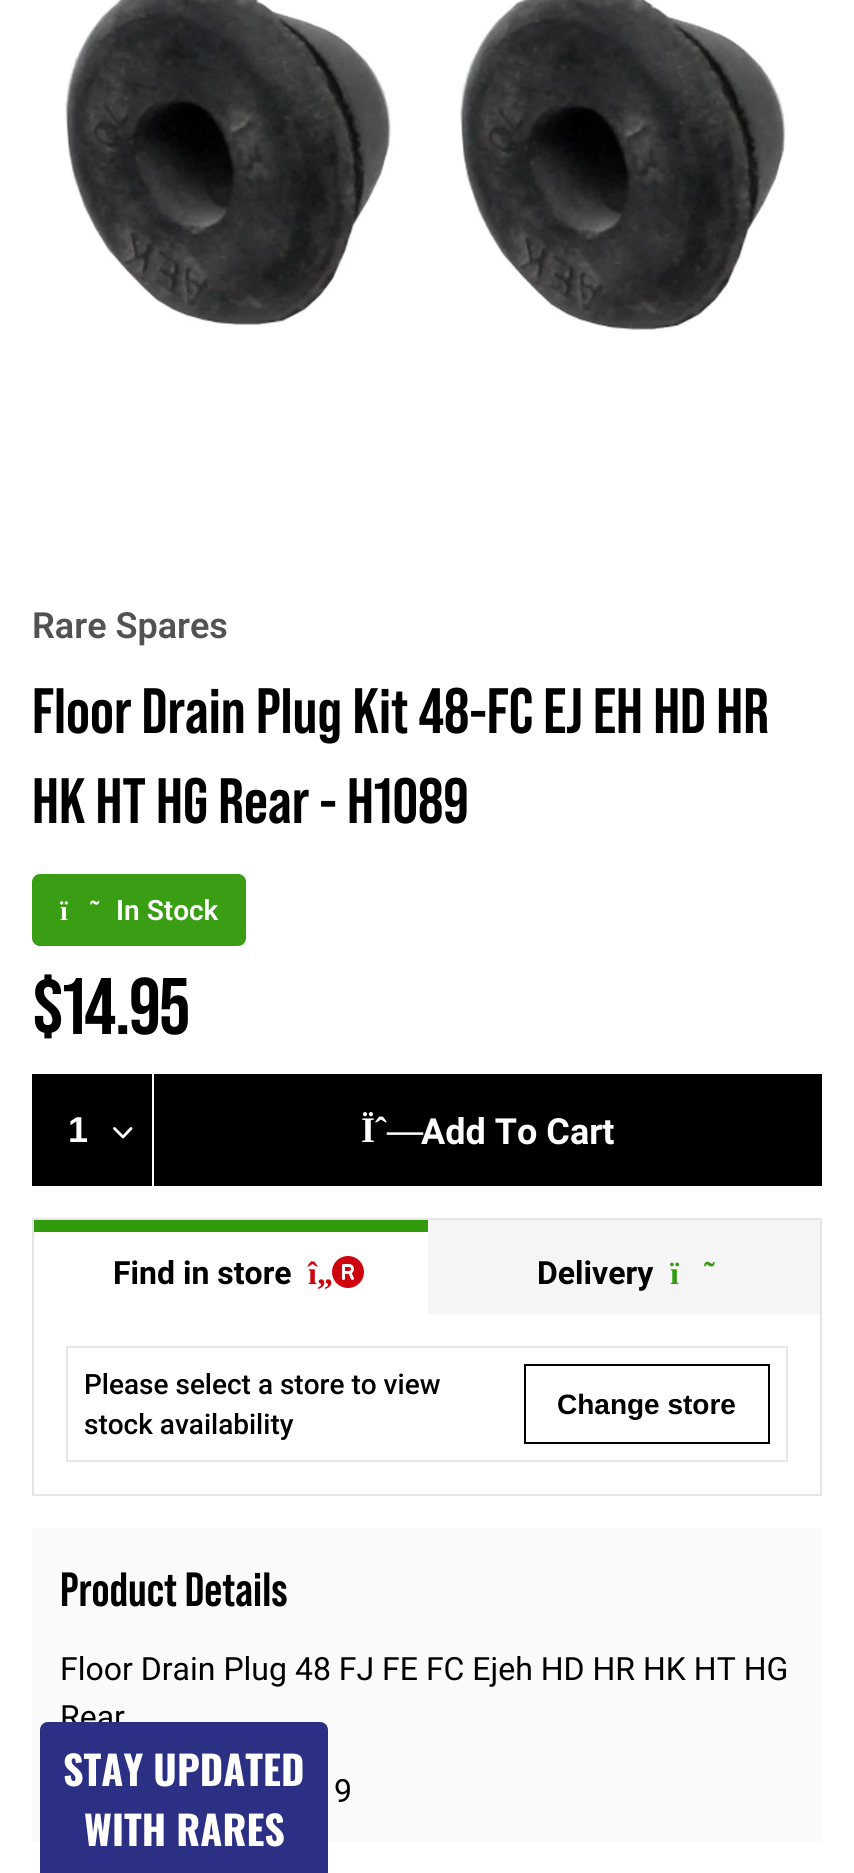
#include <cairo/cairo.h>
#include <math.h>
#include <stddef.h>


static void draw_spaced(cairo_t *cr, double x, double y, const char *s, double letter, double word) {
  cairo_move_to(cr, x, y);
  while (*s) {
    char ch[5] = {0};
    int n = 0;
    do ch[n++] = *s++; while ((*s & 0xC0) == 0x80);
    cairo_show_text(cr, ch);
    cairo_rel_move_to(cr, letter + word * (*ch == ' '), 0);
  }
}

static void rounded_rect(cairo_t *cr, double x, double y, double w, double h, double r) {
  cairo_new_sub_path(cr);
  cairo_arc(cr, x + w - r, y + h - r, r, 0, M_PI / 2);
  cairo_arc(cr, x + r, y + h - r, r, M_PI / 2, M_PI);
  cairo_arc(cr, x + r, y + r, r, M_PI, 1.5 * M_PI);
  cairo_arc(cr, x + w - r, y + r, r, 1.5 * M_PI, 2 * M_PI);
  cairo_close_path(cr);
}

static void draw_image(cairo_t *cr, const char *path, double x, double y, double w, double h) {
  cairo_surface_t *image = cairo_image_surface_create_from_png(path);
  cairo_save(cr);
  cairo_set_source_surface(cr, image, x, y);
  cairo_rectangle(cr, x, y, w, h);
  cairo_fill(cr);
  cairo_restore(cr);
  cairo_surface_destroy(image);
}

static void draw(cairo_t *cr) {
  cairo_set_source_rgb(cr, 1, 1, 1);
  cairo_paint(cr);
  draw_image(cr, "images/1.png", 65, 0, 721, 331);
  cairo_set_source_rgb(cr, 58 / 255.0, 158 / 255.0, 21 / 255.0);
  rounded_rect(cr, 32, 874, 214, 72, 8);
  cairo_fill(cr);
  cairo_set_source_rgb(cr, 0, 0, 0);
  cairo_rectangle(cr, 32, 1074, 120, 112);
  cairo_fill(cr);
  cairo_new_path(cr);
  cairo_move_to(cr, 114.5, 1128.5);
  cairo_line_to(cr, 123, 1137);
  cairo_line_to(cr, 131, 1128.5);
  cairo_set_source_rgb(cr, 1, 1, 1);
  cairo_set_line_width(cr, 2.8);
  cairo_set_line_cap(cr, CAIRO_LINE_CAP_ROUND);
  cairo_set_line_join(cr, CAIRO_LINE_JOIN_ROUND);
  cairo_stroke(cr);
  cairo_set_source_rgb(cr, 0, 0, 0);
  cairo_rectangle(cr, 154, 1074, 668, 112);
  cairo_fill(cr);
  cairo_rectangle(cr, 33, 1219, 788, 276);
  cairo_set_source_rgb(cr, 229 / 255.0, 229 / 255.0, 229 / 255.0);
  cairo_set_line_width(cr, 2);
  cairo_set_line_cap(cr, CAIRO_LINE_CAP_BUTT);
  cairo_set_line_join(cr, CAIRO_LINE_JOIN_MITER);
  cairo_stroke(cr);
  cairo_set_source_rgb(cr, 245 / 255.0, 245 / 255.0, 245 / 255.0);
  cairo_rectangle(cr, 428, 1220, 392, 94);
  cairo_fill(cr);
  cairo_set_source_rgb(cr, 50 / 255.0, 154 / 255.0, 13 / 255.0);
  cairo_rectangle(cr, 34, 1220, 394, 12);
  cairo_fill(cr);
  draw_image(cr, "images/2.png", 332, 1256, 32, 32);
  cairo_rectangle(cr, 67, 1347, 720, 114);
  cairo_set_source_rgb(cr, 229 / 255.0, 229 / 255.0, 229 / 255.0);
  cairo_stroke(cr);
  cairo_rectangle(cr, 525, 1365, 244, 78);
  cairo_set_source_rgb(cr, 0, 0, 0);
  cairo_stroke(cr);
  cairo_set_source_rgb(cr, 250 / 255.0, 250 / 255.0, 250 / 255.0);
  cairo_rectangle(cr, 32, 1528, 790, 314);
  cairo_fill(cr);
  cairo_select_font_face(cr, "Roboto SemiBold", CAIRO_FONT_SLANT_NORMAL, CAIRO_FONT_WEIGHT_NORMAL);
  cairo_set_font_size(cr, 36);
  cairo_set_source_rgb(cr, 82 / 255.0, 82 / 255.0, 82 / 255.0);
  cairo_move_to(cr, 32, 638);
  cairo_show_text(cr, "Rare Spares");
  cairo_select_font_face(cr, "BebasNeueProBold", CAIRO_FONT_SLANT_NORMAL, CAIRO_FONT_WEIGHT_BOLD);
  cairo_set_font_size(cr, 64);
  cairo_set_source_rgb(cr, 0, 0, 0);
  cairo_move_to(cr, 32, 733);
  cairo_show_text(cr, "Floor Drain Plug Kit 48-FC EJ EH HD HR");
  cairo_move_to(cr, 32, 823);
  cairo_show_text(cr, "HK HT HG Rear - H1089");
  cairo_select_font_face(cr, "Liberation Serif", CAIRO_FONT_SLANT_NORMAL, CAIRO_FONT_WEIGHT_BOLD);
  cairo_set_font_size(cr, 28);
  cairo_set_source_rgb(cr, 1, 1, 1);
  cairo_move_to(cr, 60, 920);
  cairo_show_text(cr, "ï");
  cairo_move_to(cr, 90, 920);
  cairo_show_text(cr, "˜");
  cairo_select_font_face(cr, "Roboto SemiBold", CAIRO_FONT_SLANT_NORMAL, CAIRO_FONT_WEIGHT_NORMAL);
  cairo_move_to(cr, 116, 920);
  cairo_show_text(cr, "In Stock");
  cairo_select_font_face(cr, "BebasNeueProBold", CAIRO_FONT_SLANT_NORMAL, CAIRO_FONT_WEIGHT_BOLD);
  cairo_set_font_size(cr, 80);
  cairo_set_source_rgb(cr, 0, 0, 0);
  draw_spaced(cr, 32, 1034, "$14.95", -1.5, 0);
  cairo_select_font_face(cr, "Liberation Sans", CAIRO_FONT_SLANT_NORMAL, CAIRO_FONT_WEIGHT_BOLD);
  cairo_set_font_size(cr, 36);
  cairo_set_source_rgb(cr, 1, 1, 1);
  cairo_move_to(cr, 68, 1142);
  cairo_show_text(cr, "1");
  cairo_select_font_face(cr, "Liberation Serif", CAIRO_FONT_SLANT_NORMAL, CAIRO_FONT_WEIGHT_BOLD);
  cairo_move_to(cr, 361, 1142);
  cairo_show_text(cr, "Ïˆ—");
  cairo_select_font_face(cr, "Roboto", CAIRO_FONT_SLANT_NORMAL, CAIRO_FONT_WEIGHT_BOLD);
  cairo_move_to(cr, 421, 1144);
  cairo_show_text(cr, "Add To Cart");
  cairo_set_font_size(cr, 32);
  cairo_set_source_rgb(cr, 0, 0, 0);
  cairo_move_to(cr, 113, 1284);
  cairo_show_text(cr, "Find in store");
  cairo_select_font_face(cr, "Liberation Serif", CAIRO_FONT_SLANT_NORMAL, CAIRO_FONT_WEIGHT_BOLD);
  cairo_set_source_rgb(cr, 205 / 255.0, 3 / 255.0, 14 / 255.0);
  cairo_move_to(cr, 308, 1284);
  cairo_show_text(cr, "î„");
  cairo_select_font_face(cr, "Roboto", CAIRO_FONT_SLANT_NORMAL, CAIRO_FONT_WEIGHT_BOLD);
  cairo_set_source_rgb(cr, 0, 0, 0);
  cairo_move_to(cr, 537, 1284);
  cairo_show_text(cr, "Delivery");
  cairo_select_font_face(cr, "Liberation Serif", CAIRO_FONT_SLANT_NORMAL, CAIRO_FONT_WEIGHT_BOLD);
  cairo_set_source_rgb(cr, 50 / 255.0, 154 / 255.0, 13 / 255.0);
  cairo_move_to(cr, 670, 1284);
  cairo_show_text(cr, "ï");
  cairo_move_to(cr, 704, 1284);
  cairo_show_text(cr, "˜");
  cairo_select_font_face(cr, "Roboto Medium", CAIRO_FONT_SLANT_NORMAL, CAIRO_FONT_WEIGHT_NORMAL);
  cairo_set_font_size(cr, 28);
  cairo_set_source_rgb(cr, 0, 0, 0);
  cairo_move_to(cr, 84, 1394);
  cairo_show_text(cr, "Please select a store to view");
  cairo_move_to(cr, 84, 1434);
  cairo_show_text(cr, "stock availability");
  cairo_select_font_face(cr, "Liberation Sans", CAIRO_FONT_SLANT_NORMAL, CAIRO_FONT_WEIGHT_BOLD);
  cairo_move_to(cr, 557, 1414);
  cairo_show_text(cr, "Change store");
  cairo_select_font_face(cr, "BebasNeueProBold", CAIRO_FONT_SLANT_NORMAL, CAIRO_FONT_WEIGHT_BOLD);
  cairo_set_font_size(cr, 48);
  cairo_move_to(cr, 60, 1606);
  cairo_show_text(cr, "Product Details");
  cairo_select_font_face(cr, "Roboto", CAIRO_FONT_SLANT_NORMAL, CAIRO_FONT_WEIGHT_NORMAL);
  cairo_set_font_size(cr, 32);
  cairo_move_to(cr, 60, 1680);
  cairo_show_text(cr, "Floor Drain Plug 48 FJ FE FC Ejeh HD HR HK HT HG");
  cairo_move_to(cr, 60, 1728);
  cairo_show_text(cr, "Rear");
  cairo_move_to(cr, 334, 1802);
  cairo_show_text(cr, "9");
  cairo_set_source_rgb(cr, 44 / 255.0, 48 / 255.0, 132 / 255.0);
  cairo_new_path(cr);
  cairo_move_to(cr, 48, 1722);
  cairo_line_to(cr, 320, 1722);
  cairo_curve_to(cr, 324.5, 1722, 328, 1725.5, 328, 1730);
  cairo_line_to(cr, 328, 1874);
  cairo_line_to(cr, 40, 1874);
  cairo_line_to(cr, 40, 1730);
  cairo_curve_to(cr, 40, 1725.5, 43.5, 1722, 48, 1722);
  cairo_close_path(cr);
  cairo_fill(cr);
  cairo_select_font_face(cr, "Oswald", CAIRO_FONT_SLANT_NORMAL, CAIRO_FONT_WEIGHT_BOLD);
  cairo_set_font_size(cr, 40);
  cairo_set_source_rgb(cr, 1, 1, 1);
  cairo_move_to(cr, 63, 1786);
  cairo_show_text(cr, "STAY UPDATED");
  cairo_move_to(cr, 84, 1846);
  cairo_show_text(cr, "WITH RARES");
}

int main(void) {
  cairo_surface_t *surface = cairo_image_surface_create(CAIRO_FORMAT_RGB24, 854, 1873);
  cairo_t *cr = cairo_create(surface);
  cairo_font_options_t *options = cairo_font_options_create();
  cairo_font_options_set_hint_metrics(options, CAIRO_HINT_METRICS_OFF);
  cairo_font_options_set_hint_style(options, CAIRO_HINT_STYLE_NONE);
  cairo_set_font_options(cr, options);
  cairo_set_miter_limit(cr, 4);
  draw(cr);
  cairo_surface_write_to_png(surface, "out.png");
  cairo_font_options_destroy(options);
  cairo_destroy(cr);
  cairo_surface_destroy(surface);
  return 0;
}
